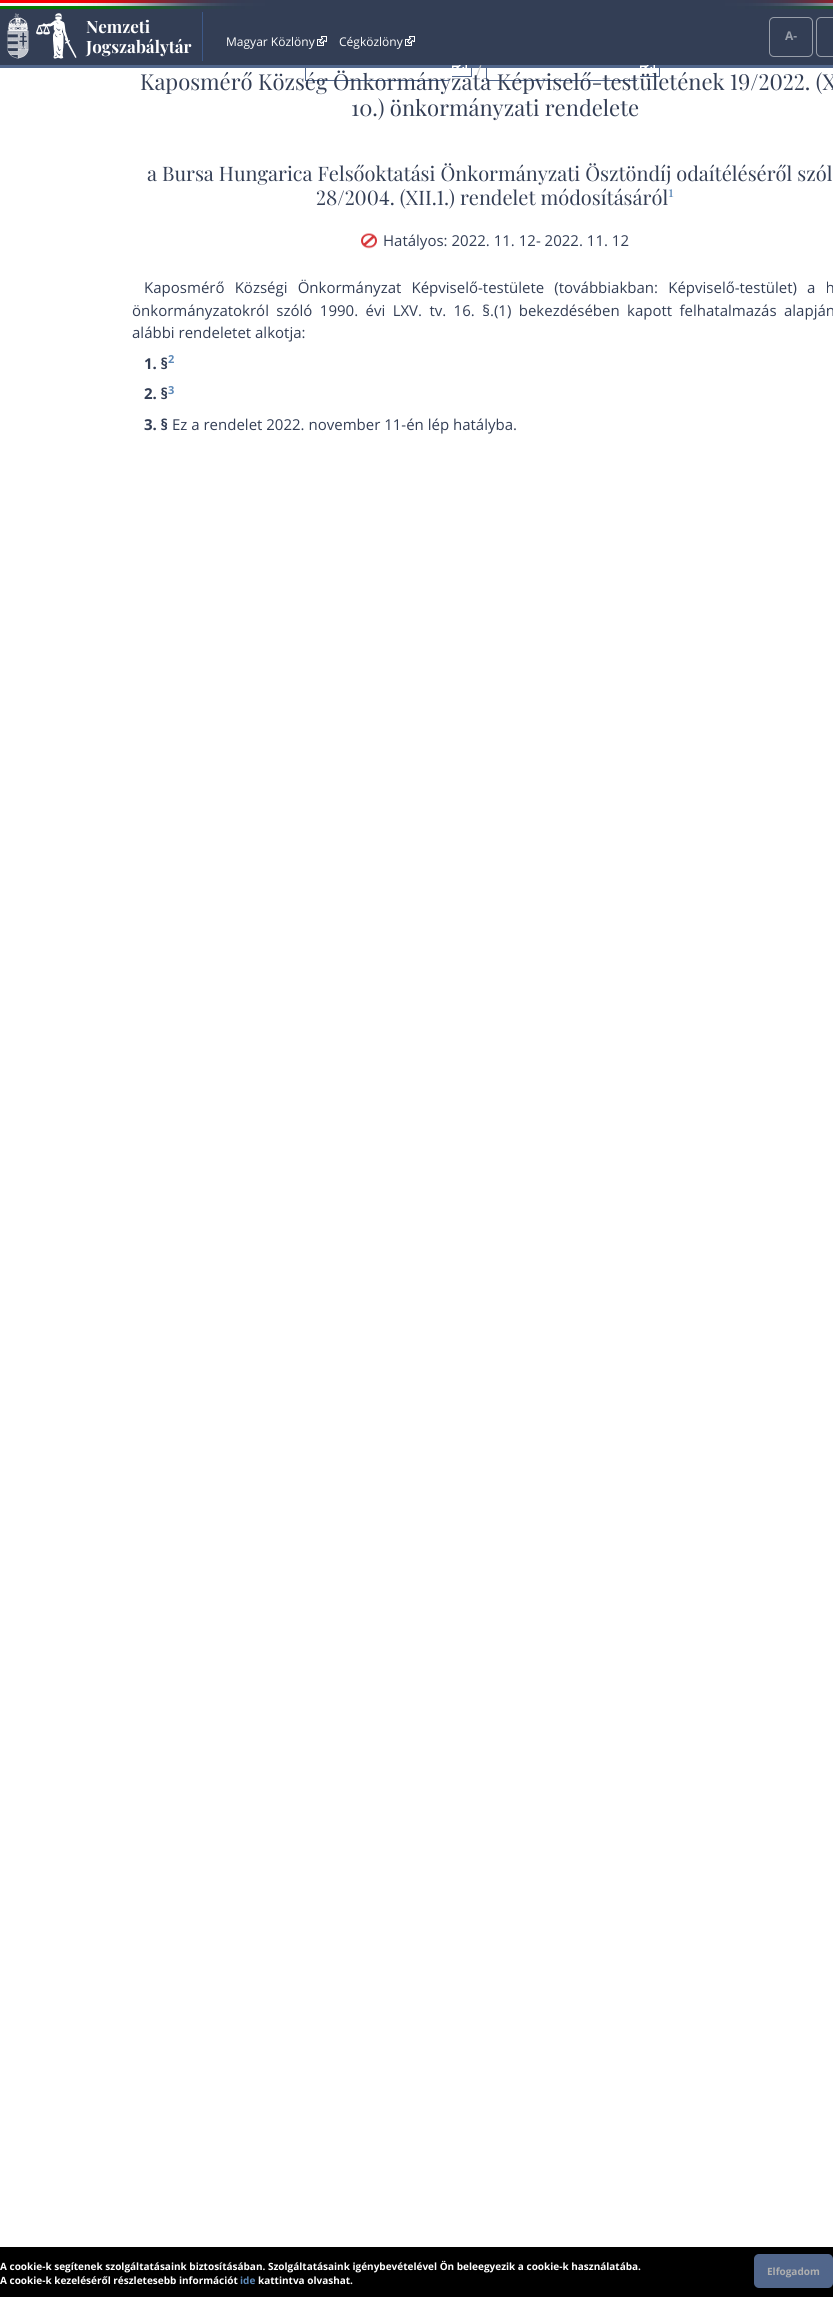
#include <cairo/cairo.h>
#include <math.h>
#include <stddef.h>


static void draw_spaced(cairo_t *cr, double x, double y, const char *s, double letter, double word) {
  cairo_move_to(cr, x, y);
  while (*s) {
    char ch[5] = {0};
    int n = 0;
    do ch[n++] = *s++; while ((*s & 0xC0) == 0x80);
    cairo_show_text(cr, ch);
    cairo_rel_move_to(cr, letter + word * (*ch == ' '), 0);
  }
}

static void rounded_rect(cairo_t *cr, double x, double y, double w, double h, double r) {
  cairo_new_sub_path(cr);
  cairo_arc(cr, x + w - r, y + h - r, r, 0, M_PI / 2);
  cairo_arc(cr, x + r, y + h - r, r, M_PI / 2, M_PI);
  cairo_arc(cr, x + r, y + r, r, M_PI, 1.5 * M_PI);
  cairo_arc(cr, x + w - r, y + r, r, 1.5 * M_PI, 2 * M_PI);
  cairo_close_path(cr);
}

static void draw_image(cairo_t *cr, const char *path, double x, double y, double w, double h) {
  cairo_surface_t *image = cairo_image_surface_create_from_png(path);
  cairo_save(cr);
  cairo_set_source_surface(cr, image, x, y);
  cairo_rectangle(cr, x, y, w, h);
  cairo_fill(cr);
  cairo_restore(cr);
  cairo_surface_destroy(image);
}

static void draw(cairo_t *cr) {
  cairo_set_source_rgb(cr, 1, 1, 1);
  cairo_paint(cr);
  cairo_set_source_rgb(cr, 81 / 255.0, 102 / 255.0, 139 / 255.0);
  cairo_rectangle(cr, 0, 65, 833, 3);
  cairo_fill(cr);
  cairo_rectangle(cr, 305, 80, 144, 1);
  cairo_fill(cr);
  cairo_rectangle(cr, 305, 59, 1, 22);
  cairo_fill(cr);
  cairo_rectangle(cr, 471, 60, 1, 17);
  cairo_fill(cr);
  cairo_rectangle(cr, 486, 80, 151, 1);
  cairo_fill(cr);
  cairo_rectangle(cr, 486, 59, 1, 22);
  cairo_fill(cr);
  cairo_rectangle(cr, 659, 60, 1, 17);
  cairo_fill(cr);
  cairo_set_source_rgb(cr, 51 / 255.0, 62 / 255.0, 85 / 255.0);
  cairo_rectangle(cr, 0, 0, 833, 65);
  cairo_fill(cr);
  draw_image(cr, "images/1.png", 0, 0, 833, 9);
  draw_image(cr, "images/2.png", 7, 13, 70, 46);
  cairo_set_source_rgb(cr, 61 / 255.0, 89 / 255.0, 136 / 255.0);
  cairo_rectangle(cr, 202, 12, 1, 49);
  cairo_fill(cr);
  draw_image(cr, "images/3.png", 317, 36, 10, 10);
  draw_image(cr, "images/3.png", 405, 36, 10, 10);
  rounded_rect(cr, 769.5, 17.5, 43, 39, 4.5);
  cairo_set_source_rgb(cr, 153 / 255.0, 159 / 255.0, 170 / 255.0);
  cairo_set_line_width(cr, 1);
  cairo_stroke(cr);
  rounded_rect(cr, 816.5, 17.5, 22, 39, 4.5);
  cairo_stroke(cr);
  cairo_set_source_rgb(cr, 81 / 255.0, 102 / 255.0, 139 / 255.0);
  cairo_rectangle(cr, 452, 76, 20, 1);
  cairo_fill(cr);
  draw_image(cr, "images/4.png", 452, 65, 15, 3);
  cairo_rectangle(cr, 640, 76, 20, 1);
  cairo_fill(cr);
  draw_image(cr, "images/4.png", 640, 65, 15, 3);
  draw_image(cr, "images/5.png", 361, 233, 16, 16);
  cairo_set_source_rgb(cr, 0, 0, 0);
  cairo_rectangle(cr, 0, 2247, 833, 50);
  cairo_fill(cr);
  cairo_set_source_rgb(cr, 81 / 255.0, 102 / 255.0, 139 / 255.0);
  rounded_rect(cr, 754, 2254, 79, 34, 5);
  cairo_fill(cr);
  cairo_select_font_face(cr, "Playfair Display", CAIRO_FONT_SLANT_NORMAL, CAIRO_FONT_WEIGHT_BOLD);
  cairo_set_font_size(cr, 17);
  cairo_set_source_rgb(cr, 1, 1, 1);
  cairo_move_to(cr, 86, 33);
  cairo_show_text(cr, "Nemzeti");
  cairo_move_to(cr, 86, 53);
  cairo_show_text(cr, "Jogszabálytár");
  cairo_select_font_face(cr, "Open Sans", CAIRO_FONT_SLANT_NORMAL, CAIRO_FONT_WEIGHT_NORMAL);
  cairo_set_font_size(cr, 12);
  cairo_move_to(cr, 226, 46);
  cairo_show_text(cr, "Magyar Közlöny");
  cairo_move_to(cr, 339, 46);
  cairo_show_text(cr, "Cégközlöny");
  cairo_select_font_face(cr, "Open Sans", CAIRO_FONT_SLANT_NORMAL, CAIRO_FONT_WEIGHT_BOLD);
  cairo_set_source_rgb(cr, 153 / 255.0, 159 / 255.0, 170 / 255.0);
  cairo_move_to(cr, 785, 40);
  cairo_show_text(cr, "A-");
  cairo_select_font_face(cr, "Open Sans", CAIRO_FONT_SLANT_NORMAL, CAIRO_FONT_WEIGHT_NORMAL);
  cairo_set_font_size(cr, 15);
  cairo_set_source_rgb(cr, 204 / 255.0, 204 / 255.0, 204 / 255.0);
  cairo_move_to(cr, 476, 76);
  cairo_show_text(cr, "/");
  cairo_select_font_face(cr, "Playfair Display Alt", CAIRO_FONT_SLANT_NORMAL, CAIRO_FONT_WEIGHT_NORMAL);
  cairo_set_font_size(cr, 22);
  cairo_set_source_rgb(cr, 51 / 255.0, 62 / 255.0, 85 / 255.0);
  cairo_move_to(cr, 140, 90);
  cairo_show_text(cr, "Kaposmérő Község Önkormányzata Képviselő-testületének 19/2022. (X");
  cairo_select_font_face(cr, "Playfair Display", CAIRO_FONT_SLANT_NORMAL, CAIRO_FONT_WEIGHT_NORMAL);
  cairo_move_to(cr, 351, 116);
  cairo_show_text(cr, "10.) önkormányzati rendelete");
  cairo_set_font_size(cr, 20);
  cairo_move_to(cr, 147, 181);
  cairo_show_text(cr, "a Bursa Hungarica Felsőoktatási Önkormányzati Ösztöndíj odaítéléséről szól");
  cairo_select_font_face(cr, "Playfair Display Alt", CAIRO_FONT_SLANT_NORMAL, CAIRO_FONT_WEIGHT_NORMAL);
  cairo_move_to(cr, 316, 205);
  cairo_show_text(cr, "28/2004. (XII.1.) rendelet módosításáról");
  cairo_select_font_face(cr, "Playfair Display", CAIRO_FONT_SLANT_NORMAL, CAIRO_FONT_WEIGHT_NORMAL);
  cairo_set_font_size(cr, 15);
  cairo_set_source_rgb(cr, 93 / 255.0, 137 / 255.0, 184 / 255.0);
  cairo_move_to(cr, 668, 197);
  cairo_show_text(cr, "1");
  cairo_select_font_face(cr, "Open Sans", CAIRO_FONT_SLANT_NORMAL, CAIRO_FONT_WEIGHT_NORMAL);
  cairo_set_source_rgb(cr, 51 / 255.0, 62 / 255.0, 85 / 255.0);
  cairo_move_to(cr, 383, 246);
  cairo_show_text(cr, "Hatályos: 2022. 11. 12- 2022. 11. 12");
  draw_spaced(cr, 144, 293, "Kaposmérő Községi Önkormányzat Képviselő-testülete (továbbiakban: Képviselő-testület) a h", 0, 6.25);
  draw_spaced(cr, 132, 316, "önkormányzatokról szóló 1990. évi LXV. tv. 16. §.(1) bekezdésében kapott felhatalmazás alapján", 0, 3.5);
  cairo_move_to(cr, 132, 338);
  cairo_show_text(cr, "alábbi rendeletet alkotja:");
  cairo_select_font_face(cr, "Open Sans", CAIRO_FONT_SLANT_NORMAL, CAIRO_FONT_WEIGHT_BOLD);
  cairo_move_to(cr, 144, 369);
  cairo_show_text(cr, "1. §");
  cairo_set_font_size(cr, 11);
  cairo_set_source_rgb(cr, 93 / 255.0, 137 / 255.0, 184 / 255.0);
  cairo_move_to(cr, 168, 363);
  cairo_show_text(cr, "2");
  cairo_set_font_size(cr, 15);
  cairo_set_source_rgb(cr, 51 / 255.0, 62 / 255.0, 85 / 255.0);
  cairo_move_to(cr, 144, 399);
  cairo_show_text(cr, "2. §");
  cairo_set_font_size(cr, 11);
  cairo_set_source_rgb(cr, 93 / 255.0, 137 / 255.0, 184 / 255.0);
  cairo_move_to(cr, 168, 394);
  cairo_show_text(cr, "3");
  cairo_set_font_size(cr, 15);
  cairo_set_source_rgb(cr, 51 / 255.0, 62 / 255.0, 85 / 255.0);
  cairo_move_to(cr, 144, 430);
  cairo_show_text(cr, "3. §");
  cairo_select_font_face(cr, "Open Sans", CAIRO_FONT_SLANT_NORMAL, CAIRO_FONT_WEIGHT_NORMAL);
  cairo_move_to(cr, 172, 430);
  cairo_show_text(cr, "Ez a rendelet 2022. november 11-én lép hatályba.");
  cairo_select_font_face(cr, "Open Sans", CAIRO_FONT_SLANT_NORMAL, CAIRO_FONT_WEIGHT_BOLD);
  cairo_set_font_size(cr, 10);
  cairo_set_source_rgb(cr, 1, 1, 1);
  cairo_move_to(cr, 0, 2270);
  cairo_show_text(cr, "A cookie-k segítenek szolgáltatásaink biztosításában. Szolgáltatásaink igénybevételével Ön beleegyezik a cookie-k használatába.");
  cairo_move_to(cr, 0, 2284);
  cairo_show_text(cr, "A cookie-k kezeléséről részletesebb információt");
  cairo_set_source_rgb(cr, 93 / 255.0, 137 / 255.0, 184 / 255.0);
  cairo_move_to(cr, 240, 2284);
  cairo_show_text(cr, "ide");
  cairo_set_source_rgb(cr, 1, 1, 1);
  cairo_move_to(cr, 258, 2284);
  cairo_show_text(cr, "kattintva olvashat.");
  cairo_set_source_rgb(cr, 175 / 255.0, 175 / 255.0, 175 / 255.0);
  cairo_move_to(cr, 767, 2275);
  cairo_show_text(cr, "Elfogadom");
}

int main(void) {
  cairo_surface_t *surface = cairo_image_surface_create(CAIRO_FORMAT_RGB24, 833, 2297);
  cairo_t *cr = cairo_create(surface);
  cairo_font_options_t *options = cairo_font_options_create();
  cairo_font_options_set_hint_metrics(options, CAIRO_HINT_METRICS_OFF);
  cairo_font_options_set_hint_style(options, CAIRO_HINT_STYLE_NONE);
  cairo_set_font_options(cr, options);
  cairo_set_miter_limit(cr, 4);
  draw(cr);
  cairo_surface_write_to_png(surface, "out.png");
  cairo_font_options_destroy(options);
  cairo_destroy(cr);
  cairo_surface_destroy(surface);
  return 0;
}
